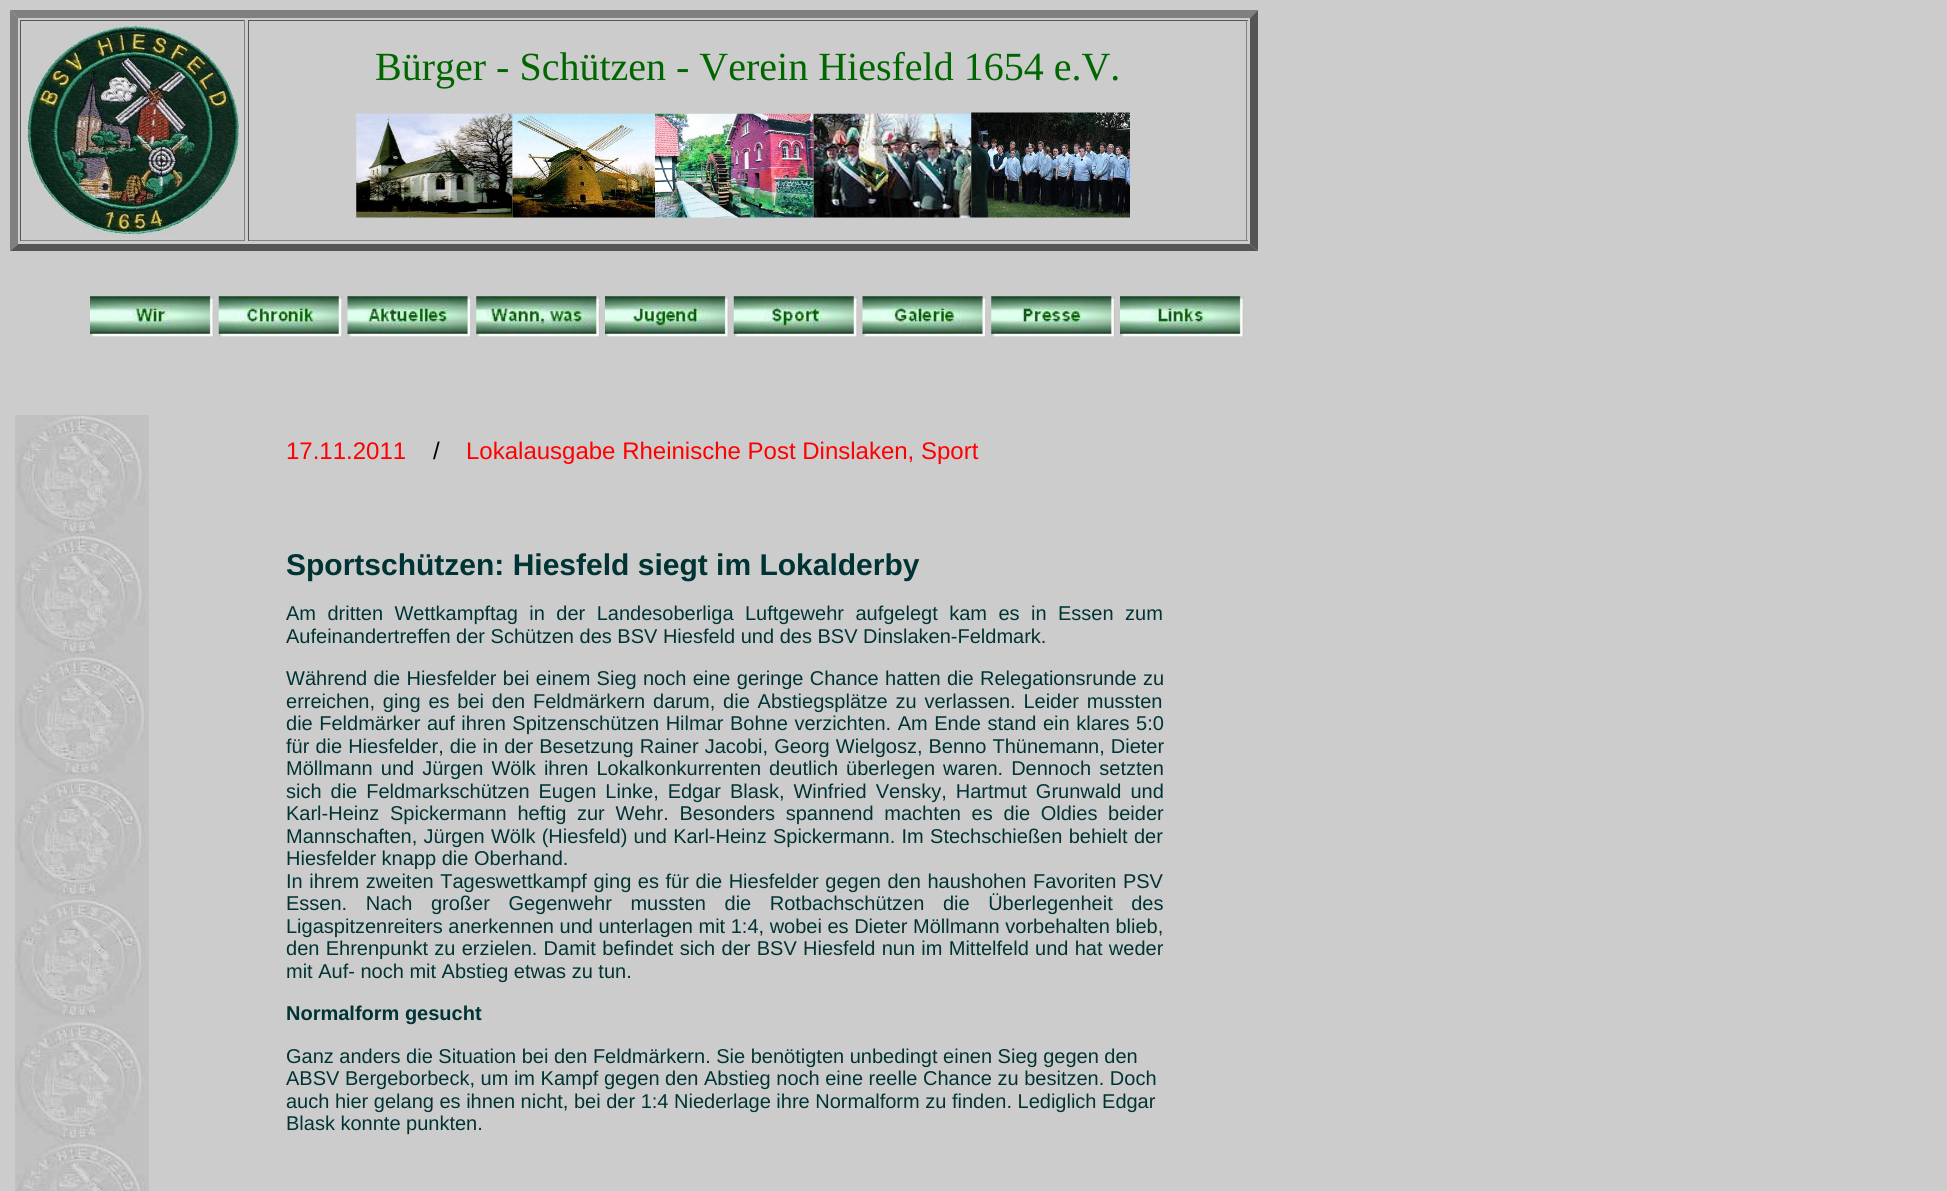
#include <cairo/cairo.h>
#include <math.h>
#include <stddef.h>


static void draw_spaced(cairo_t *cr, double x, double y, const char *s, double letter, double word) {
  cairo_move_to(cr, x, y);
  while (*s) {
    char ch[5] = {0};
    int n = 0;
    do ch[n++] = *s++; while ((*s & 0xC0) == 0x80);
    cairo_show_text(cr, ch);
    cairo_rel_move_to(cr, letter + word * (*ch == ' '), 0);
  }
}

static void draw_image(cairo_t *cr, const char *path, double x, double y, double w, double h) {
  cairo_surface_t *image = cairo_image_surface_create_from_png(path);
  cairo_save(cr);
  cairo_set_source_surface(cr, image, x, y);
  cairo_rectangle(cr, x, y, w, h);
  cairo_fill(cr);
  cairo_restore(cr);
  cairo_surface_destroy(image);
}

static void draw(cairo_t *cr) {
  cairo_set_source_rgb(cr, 204 / 255.0, 204 / 255.0, 204 / 255.0);
  cairo_paint(cr);
  cairo_set_source_rgb(cr, 128 / 255.0, 128 / 255.0, 128 / 255.0);
  cairo_new_path(cr);
  cairo_move_to(cr, 10, 10);
  cairo_line_to(cr, 1258, 10);
  cairo_line_to(cr, 1250, 18);
  cairo_line_to(cr, 18, 18);
  cairo_close_path(cr);
  cairo_fill(cr);
  cairo_set_source_rgb(cr, 85 / 255.0, 85 / 255.0, 85 / 255.0);
  cairo_new_path(cr);
  cairo_move_to(cr, 1258, 10);
  cairo_line_to(cr, 1258, 251);
  cairo_line_to(cr, 1250, 244);
  cairo_line_to(cr, 1250, 18);
  cairo_close_path(cr);
  cairo_fill(cr);
  cairo_new_path(cr);
  cairo_move_to(cr, 1258, 251);
  cairo_line_to(cr, 10, 251);
  cairo_line_to(cr, 18, 244);
  cairo_line_to(cr, 1250, 244);
  cairo_close_path(cr);
  cairo_fill(cr);
  cairo_set_source_rgb(cr, 128 / 255.0, 128 / 255.0, 128 / 255.0);
  cairo_new_path(cr);
  cairo_move_to(cr, 10, 251);
  cairo_line_to(cr, 10, 10);
  cairo_line_to(cr, 18, 18);
  cairo_line_to(cr, 18, 244);
  cairo_close_path(cr);
  cairo_fill(cr);
  cairo_set_source_rgb(cr, 85 / 255.0, 85 / 255.0, 85 / 255.0);
  cairo_rectangle(cr, 20, 20, 225, 1);
  cairo_fill(cr);
  cairo_set_source_rgb(cr, 128 / 255.0, 128 / 255.0, 128 / 255.0);
  cairo_rectangle(cr, 244, 20, 1, 221);
  cairo_fill(cr);
  cairo_rectangle(cr, 20, 240, 225, 1);
  cairo_fill(cr);
  cairo_set_source_rgb(cr, 85 / 255.0, 85 / 255.0, 85 / 255.0);
  cairo_rectangle(cr, 20, 20, 1, 221);
  cairo_fill(cr);
  draw_image(cr, "images/1.png", 24, 24, 217, 214);
  cairo_rectangle(cr, 248, 20, 1000, 1);
  cairo_fill(cr);
  cairo_set_source_rgb(cr, 128 / 255.0, 128 / 255.0, 128 / 255.0);
  cairo_rectangle(cr, 1246, 20, 1, 221);
  cairo_fill(cr);
  cairo_rectangle(cr, 248, 240, 1000, 1);
  cairo_fill(cr);
  cairo_set_source_rgb(cr, 85 / 255.0, 85 / 255.0, 85 / 255.0);
  cairo_rectangle(cr, 248, 20, 1, 221);
  cairo_fill(cr);
  draw_image(cr, "images/2.png", 356, 113, 157, 105);
  draw_image(cr, "images/3.png", 512, 113, 143, 105);
  draw_image(cr, "images/4.png", 655, 113, 159, 105);
  draw_image(cr, "images/5.png", 813, 113, 159, 105);
  draw_image(cr, "images/6.png", 971, 112, 159, 106);
  draw_image(cr, "images/7.png", 90, 296, 124, 41);
  draw_image(cr, "images/8.png", 218, 296, 125, 41);
  draw_image(cr, "images/9.png", 347, 296, 125, 41);
  draw_image(cr, "images/10.png", 476, 296, 124, 41);
  draw_image(cr, "images/11.png", 605, 296, 124, 42);
  draw_image(cr, "images/12.png", 733, 296, 125, 41);
  draw_image(cr, "images/13.png", 862, 296, 125, 41);
  draw_image(cr, "images/14.png", 991, 296, 124, 41);
  draw_image(cr, "images/15.png", 1120, 296, 124, 41);
  draw_image(cr, "images/16.png", 15, 415, 134, 776);
  cairo_select_font_face(cr, "Liberation Serif", CAIRO_FONT_SLANT_NORMAL, CAIRO_FONT_WEIGHT_NORMAL);
  cairo_set_font_size(cr, 40);
  cairo_set_source_rgb(cr, 0, 102 / 255.0, 0);
  cairo_move_to(cr, 375, 80);
  cairo_show_text(cr, "Bürger - Schützen - Verein Hiesfeld 1654 e.V.");
  cairo_select_font_face(cr, "Liberation Sans", CAIRO_FONT_SLANT_NORMAL, CAIRO_FONT_WEIGHT_NORMAL);
  cairo_set_font_size(cr, 24);
  cairo_set_source_rgb(cr, 1, 0, 0);
  cairo_move_to(cr, 286, 459);
  cairo_show_text(cr, "17.11.2011");
  cairo_set_source_rgb(cr, 0, 0, 0);
  cairo_move_to(cr, 433, 459);
  cairo_show_text(cr, "/");
  cairo_set_source_rgb(cr, 1, 0, 0);
  cairo_move_to(cr, 466, 459);
  cairo_show_text(cr, "Lokalausgabe Rheinische Post Dinslaken, Sport");
  cairo_select_font_face(cr, "Liberation Sans", CAIRO_FONT_SLANT_NORMAL, CAIRO_FONT_WEIGHT_BOLD);
  cairo_set_font_size(cr, 30);
  cairo_set_source_rgb(cr, 0, 51 / 255.0, 51 / 255.0);
  cairo_move_to(cr, 286, 575);
  cairo_show_text(cr, "Sportschützen: Hiesfeld siegt im Lokalderby");
  cairo_select_font_face(cr, "Liberation Sans", CAIRO_FONT_SLANT_NORMAL, CAIRO_FONT_WEIGHT_NORMAL);
  cairo_set_font_size(cr, 20);
  draw_spaced(cr, 286, 620, "Am dritten Wettkampftag in der Landesoberliga Luftgewehr aufgelegt kam es in Essen zum", 0, 5.9);
  cairo_move_to(cr, 286, 643);
  cairo_show_text(cr, "Aufeinandertreffen der Schützen des BSV Hiesfeld und des BSV Dinslaken-Feldmark.");
  draw_spaced(cr, 286, 685, "Während die Hiesfelder bei einem Sieg noch eine geringe Chance hatten die Relegationsrunde zu", 0, 0.75);
  draw_spaced(cr, 286, 708, "erreichen, ging es bei den Feldmärkern darum, die Abstiegsplätze zu verlassen. Leider mussten", 0, 2.25);
  draw_spaced(cr, 286, 730, "die Feldmärker auf ihren Spitzenschützen Hilmar Bohne verzichten. Am Ende stand ein klares 5:0", 0, 1);
  draw_spaced(cr, 286, 753, "für die Hiesfelder, die in der Besetzung Rainer Jacobi, Georg Wielgosz, Benno Thünemann, Dieter", 0, 0.5);
  draw_spaced(cr, 286, 775, "Möllmann und Jürgen Wölk ihren Lokalkonkurrenten deutlich überlegen waren. Dennoch setzten", 0, 2.5);
  draw_spaced(cr, 286, 798, "sich die Feldmarkschützen Eugen Linke, Edgar Blask, Winfried Vensky, Hartmut Grunwald und", 0, 3.4);
  draw_spaced(cr, 286, 820, "Karl-Heinz Spickermann heftig zur Wehr. Besonders spannend machten es die Oldies beider", 0, 5.1);
  draw_spaced(cr, 286, 843, "Mannschaften, Jürgen Wölk (Hiesfeld) und Karl-Heinz Spickermann. Im Stechschießen behielt der", 0, 0.75);
  cairo_move_to(cr, 286, 865);
  cairo_show_text(cr, "Hiesfelder knapp die Oberhand.");
  draw_spaced(cr, 286, 888, "In ihrem zweiten Tageswettkampf ging es für die Hiesfelder gegen den haushohen Favoriten PSV", 0, 1);
  draw_spaced(cr, 286, 910, "Essen. Nach großer Gegenwehr mussten die Rotbachschützen die Überlegenheit des", 0, 13);
  cairo_move_to(cr, 286, 933);
  cairo_show_text(cr, "Ligaspitzenreiters anerkennen und unterlagen mit 1:4, wobei es Dieter Möllmann vorbehalten blieb,");
  draw_spaced(cr, 286, 955, "den Ehrenpunkt zu erzielen. Damit befindet sich der BSV Hiesfeld nun im Mittelfeld und hat weder", 0, 0.75);
  cairo_move_to(cr, 286, 978);
  cairo_show_text(cr, "mit Auf- noch mit Abstieg etwas zu tun.");
  cairo_select_font_face(cr, "Liberation Sans", CAIRO_FONT_SLANT_NORMAL, CAIRO_FONT_WEIGHT_BOLD);
  cairo_move_to(cr, 286, 1020);
  cairo_show_text(cr, "Normalform gesucht");
  cairo_select_font_face(cr, "Liberation Sans", CAIRO_FONT_SLANT_NORMAL, CAIRO_FONT_WEIGHT_NORMAL);
  cairo_move_to(cr, 286, 1063);
  cairo_show_text(cr, "Ganz anders die Situation bei den Feldmärkern. Sie benötigten unbedingt einen Sieg gegen den");
  cairo_move_to(cr, 286, 1085);
  cairo_show_text(cr, "ABSV Bergeborbeck, um im Kampf gegen den Abstieg noch eine reelle Chance zu besitzen. Doch");
  cairo_move_to(cr, 286, 1108);
  cairo_show_text(cr, "auch hier gelang es ihnen nicht, bei der 1:4 Niederlage ihre Normalform zu finden. Lediglich Edgar");
  cairo_move_to(cr, 286, 1130);
  cairo_show_text(cr, "Blask konnte punkten.");
}

int main(void) {
  cairo_surface_t *surface = cairo_image_surface_create(CAIRO_FORMAT_RGB24, 1947, 1191);
  cairo_t *cr = cairo_create(surface);
  cairo_font_options_t *options = cairo_font_options_create();
  cairo_font_options_set_hint_metrics(options, CAIRO_HINT_METRICS_OFF);
  cairo_font_options_set_hint_style(options, CAIRO_HINT_STYLE_NONE);
  cairo_set_font_options(cr, options);
  cairo_set_miter_limit(cr, 4);
  draw(cr);
  cairo_surface_write_to_png(surface, "out.png");
  cairo_font_options_destroy(options);
  cairo_destroy(cr);
  cairo_surface_destroy(surface);
  return 0;
}
